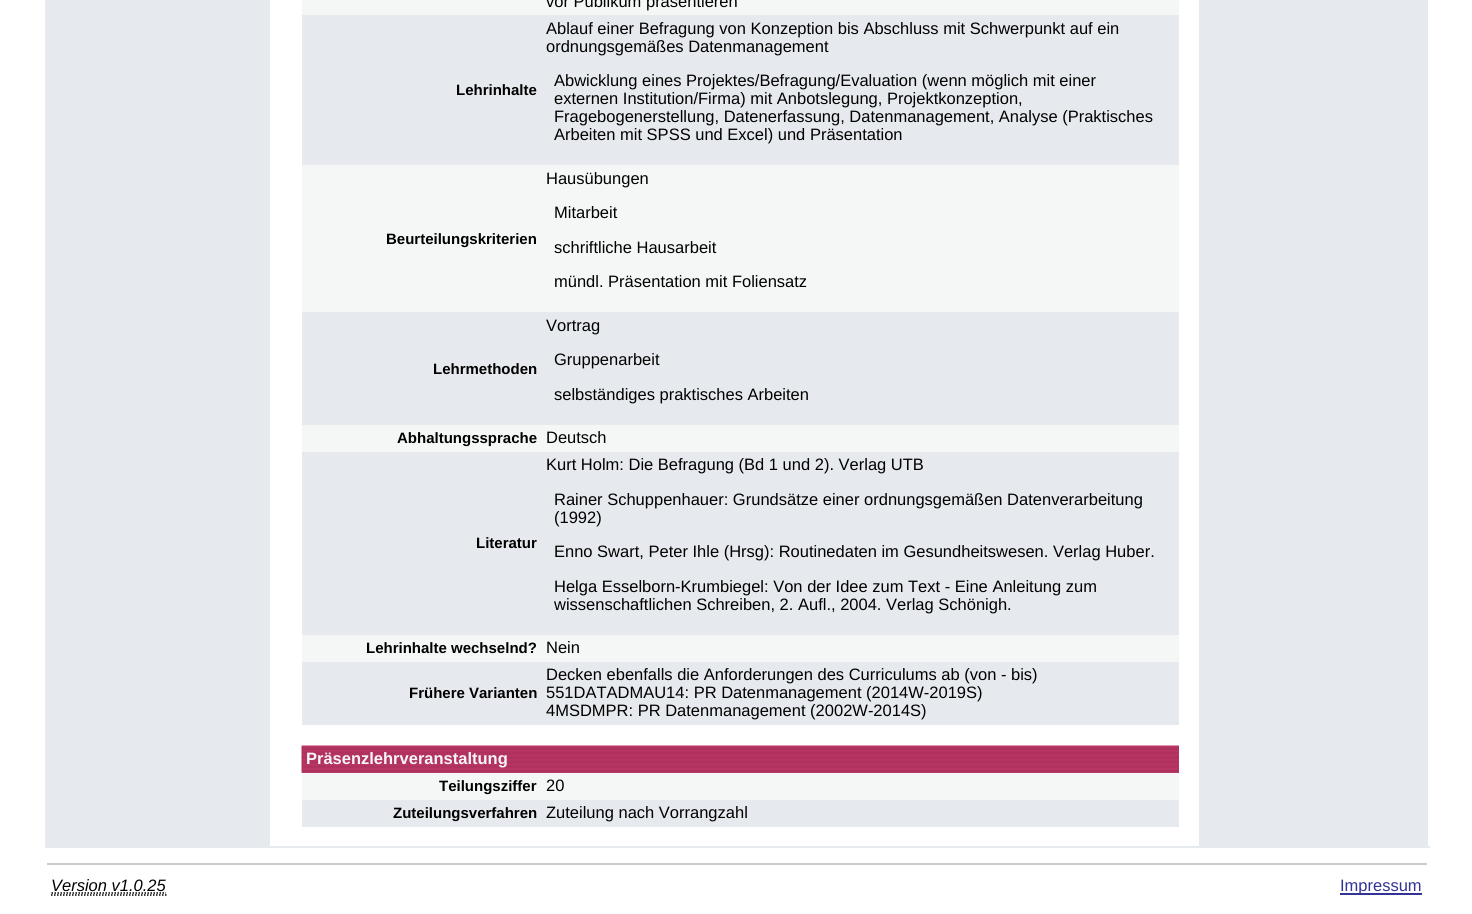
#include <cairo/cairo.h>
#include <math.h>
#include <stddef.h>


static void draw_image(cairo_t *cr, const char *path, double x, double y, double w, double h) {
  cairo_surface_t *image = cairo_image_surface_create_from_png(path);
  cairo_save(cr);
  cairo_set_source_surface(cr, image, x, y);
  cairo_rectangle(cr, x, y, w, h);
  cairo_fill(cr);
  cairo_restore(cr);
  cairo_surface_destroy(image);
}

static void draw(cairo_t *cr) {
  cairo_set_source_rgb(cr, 1, 1, 1);
  cairo_paint(cr);
  cairo_set_source_rgb(cr, 230 / 255.0, 233 / 255.0, 238 / 255.0);
  cairo_rectangle(cr, 45, 0, 225, 846);
  cairo_fill(cr);
  cairo_set_source_rgb(cr, 245 / 255.0, 247 / 255.0, 247 / 255.0);
  cairo_rectangle(cr, 302, 0, 877, 15);
  cairo_fill(cr);
  cairo_set_source_rgb(cr, 230 / 255.0, 233 / 255.0, 237 / 255.0);
  cairo_rectangle(cr, 302, 15, 877, 150);
  cairo_fill(cr);
  cairo_set_source_rgb(cr, 245 / 255.0, 247 / 255.0, 247 / 255.0);
  cairo_rectangle(cr, 302, 165, 877, 147);
  cairo_fill(cr);
  cairo_set_source_rgb(cr, 230 / 255.0, 233 / 255.0, 237 / 255.0);
  cairo_rectangle(cr, 302, 312, 877, 113);
  cairo_fill(cr);
  cairo_set_source_rgb(cr, 245 / 255.0, 247 / 255.0, 247 / 255.0);
  cairo_rectangle(cr, 302, 425, 877, 27);
  cairo_fill(cr);
  cairo_set_source_rgb(cr, 230 / 255.0, 233 / 255.0, 237 / 255.0);
  cairo_rectangle(cr, 302, 452, 877, 183);
  cairo_fill(cr);
  cairo_set_source_rgb(cr, 245 / 255.0, 247 / 255.0, 247 / 255.0);
  cairo_rectangle(cr, 302, 635, 877, 27);
  cairo_fill(cr);
  cairo_set_source_rgb(cr, 230 / 255.0, 233 / 255.0, 237 / 255.0);
  cairo_rectangle(cr, 302, 662, 877, 63);
  cairo_fill(cr);
  cairo_set_source_rgb(cr, 178 / 255.0, 67 / 255.0, 114 / 255.0);
  cairo_rectangle(cr, 302, 772, 877, 1);
  cairo_fill(cr);
  draw_image(cr, "images/1.png", 301, 745, 878, 28);
  cairo_set_source_rgb(cr, 245 / 255.0, 247 / 255.0, 247 / 255.0);
  cairo_rectangle(cr, 302, 773, 877, 27);
  cairo_fill(cr);
  cairo_set_source_rgb(cr, 230 / 255.0, 233 / 255.0, 237 / 255.0);
  cairo_rectangle(cr, 302, 800, 877, 27);
  cairo_fill(cr);
  cairo_set_source_rgb(cr, 230 / 255.0, 233 / 255.0, 238 / 255.0);
  cairo_rectangle(cr, 1199, 0, 229, 846);
  cairo_fill(cr);
  cairo_rectangle(cr, 45, 846, 1385, 2);
  cairo_fill(cr);
  cairo_set_source_rgb(cr, 204 / 255.0, 204 / 255.0, 204 / 255.0);
  cairo_rectangle(cr, 47, 863, 1380, 2);
  cairo_fill(cr);
  cairo_new_path(cr);
  cairo_move_to(cr, 51, 895);
  cairo_line_to(cr, 166.5, 895);
  cairo_set_source_rgb(cr, 0, 0, 0);
  cairo_set_line_width(cr, 1.5);
  cairo_set_dash(cr, (double[]){1.5, 1.5}, 2, 0);
  cairo_stroke(cr);
  cairo_new_path(cr);
  cairo_move_to(cr, 51.5, 893);
  cairo_line_to(cr, 166, 893);
  cairo_stroke(cr);
  cairo_set_source_rgb(cr, 51 / 255.0, 50 / 255.0, 152 / 255.0);
  cairo_rectangle(cr, 1340, 893, 82, 2);
  cairo_fill(cr);
  cairo_select_font_face(cr, "Liberation Sans", CAIRO_FONT_SLANT_NORMAL, CAIRO_FONT_WEIGHT_NORMAL);
  cairo_set_font_size(cr, 16.5);
  cairo_set_source_rgb(cr, 0, 0, 0);
  cairo_move_to(cr, 546, 7);
  cairo_show_text(cr, "vor Publikum präsentieren");
  cairo_select_font_face(cr, "Liberation Sans", CAIRO_FONT_SLANT_NORMAL, CAIRO_FONT_WEIGHT_BOLD);
  cairo_set_font_size(cr, 15);
  cairo_move_to(cr, 456, 95);
  cairo_show_text(cr, "Lehrinhalte");
  cairo_select_font_face(cr, "Liberation Sans", CAIRO_FONT_SLANT_NORMAL, CAIRO_FONT_WEIGHT_NORMAL);
  cairo_set_font_size(cr, 16.5);
  cairo_move_to(cr, 546, 34);
  cairo_show_text(cr, "Ablauf einer Befragung von Konzeption bis Abschluss mit Schwerpunkt auf ein");
  cairo_move_to(cr, 546, 52);
  cairo_show_text(cr, "ordnungsgemäßes Datenmanagement");
  cairo_move_to(cr, 554, 86);
  cairo_show_text(cr, "Abwicklung eines Projektes/Befragung/Evaluation (wenn möglich mit einer");
  cairo_move_to(cr, 554, 104);
  cairo_show_text(cr, "externen Institution/Firma) mit Anbotslegung, Projektkonzeption,");
  cairo_move_to(cr, 554, 122);
  cairo_show_text(cr, "Fragebogenerstellung, Datenerfassung, Datenmanagement, Analyse (Praktisches");
  cairo_move_to(cr, 554, 140);
  cairo_show_text(cr, "Arbeiten mit SPSS und Excel) und Präsentation");
  cairo_select_font_face(cr, "Liberation Sans", CAIRO_FONT_SLANT_NORMAL, CAIRO_FONT_WEIGHT_BOLD);
  cairo_set_font_size(cr, 15);
  cairo_move_to(cr, 386, 244);
  cairo_show_text(cr, "Beurteilungskriterien");
  cairo_select_font_face(cr, "Liberation Sans", CAIRO_FONT_SLANT_NORMAL, CAIRO_FONT_WEIGHT_NORMAL);
  cairo_set_font_size(cr, 16.5);
  cairo_move_to(cr, 546, 184);
  cairo_show_text(cr, "Hausübungen");
  cairo_move_to(cr, 554, 218);
  cairo_show_text(cr, "Mitarbeit");
  cairo_move_to(cr, 554, 253);
  cairo_show_text(cr, "schriftliche Hausarbeit");
  cairo_move_to(cr, 554, 287);
  cairo_show_text(cr, "mündl. Präsentation mit Foliensatz");
  cairo_select_font_face(cr, "Liberation Sans", CAIRO_FONT_SLANT_NORMAL, CAIRO_FONT_WEIGHT_BOLD);
  cairo_set_font_size(cr, 15);
  cairo_move_to(cr, 433, 374);
  cairo_show_text(cr, "Lehrmethoden");
  cairo_select_font_face(cr, "Liberation Sans", CAIRO_FONT_SLANT_NORMAL, CAIRO_FONT_WEIGHT_NORMAL);
  cairo_set_font_size(cr, 16.5);
  cairo_move_to(cr, 546, 331);
  cairo_show_text(cr, "Vortrag");
  cairo_move_to(cr, 554, 365);
  cairo_show_text(cr, "Gruppenarbeit");
  cairo_move_to(cr, 554, 400);
  cairo_show_text(cr, "selbständiges praktisches Arbeiten");
  cairo_select_font_face(cr, "Liberation Sans", CAIRO_FONT_SLANT_NORMAL, CAIRO_FONT_WEIGHT_BOLD);
  cairo_set_font_size(cr, 15);
  cairo_move_to(cr, 397, 443);
  cairo_show_text(cr, "Abhaltungssprache");
  cairo_select_font_face(cr, "Liberation Sans", CAIRO_FONT_SLANT_NORMAL, CAIRO_FONT_WEIGHT_NORMAL);
  cairo_set_font_size(cr, 16.5);
  cairo_move_to(cr, 546, 443);
  cairo_show_text(cr, "Deutsch");
  cairo_select_font_face(cr, "Liberation Sans", CAIRO_FONT_SLANT_NORMAL, CAIRO_FONT_WEIGHT_BOLD);
  cairo_set_font_size(cr, 15);
  cairo_move_to(cr, 476, 548);
  cairo_show_text(cr, "Literatur");
  cairo_select_font_face(cr, "Liberation Sans", CAIRO_FONT_SLANT_NORMAL, CAIRO_FONT_WEIGHT_NORMAL);
  cairo_set_font_size(cr, 16.5);
  cairo_move_to(cr, 546, 470);
  cairo_show_text(cr, "Kurt Holm: Die Befragung (Bd 1 und 2). Verlag UTB");
  cairo_move_to(cr, 554, 505);
  cairo_show_text(cr, "Rainer Schuppenhauer: Grundsätze einer ordnungsgemäßen Datenverarbeitung");
  cairo_move_to(cr, 554, 523);
  cairo_show_text(cr, "(1992)");
  cairo_move_to(cr, 554, 557);
  cairo_show_text(cr, "Enno Swart, Peter Ihle (Hrsg): Routinedaten im Gesundheitswesen. Verlag Huber.");
  cairo_move_to(cr, 554, 592);
  cairo_show_text(cr, "Helga Esselborn-Krumbiegel: Von der Idee zum Text - Eine Anleitung zum");
  cairo_move_to(cr, 554, 610);
  cairo_show_text(cr, "wissenschaftlichen Schreiben, 2. Aufl., 2004. Verlag Schönigh.");
  cairo_select_font_face(cr, "Liberation Sans", CAIRO_FONT_SLANT_NORMAL, CAIRO_FONT_WEIGHT_BOLD);
  cairo_set_font_size(cr, 15);
  cairo_move_to(cr, 366, 653);
  cairo_show_text(cr, "Lehrinhalte wechselnd?");
  cairo_select_font_face(cr, "Liberation Sans", CAIRO_FONT_SLANT_NORMAL, CAIRO_FONT_WEIGHT_NORMAL);
  cairo_set_font_size(cr, 16.5);
  cairo_move_to(cr, 546, 653);
  cairo_show_text(cr, "Nein");
  cairo_select_font_face(cr, "Liberation Sans", CAIRO_FONT_SLANT_NORMAL, CAIRO_FONT_WEIGHT_BOLD);
  cairo_set_font_size(cr, 15);
  cairo_move_to(cr, 409, 698);
  cairo_show_text(cr, "Frühere Varianten");
  cairo_select_font_face(cr, "Liberation Sans", CAIRO_FONT_SLANT_NORMAL, CAIRO_FONT_WEIGHT_NORMAL);
  cairo_set_font_size(cr, 16.5);
  cairo_move_to(cr, 546, 680);
  cairo_show_text(cr, "Decken ebenfalls die Anforderungen des Curriculums ab (von - bis)");
  cairo_move_to(cr, 546, 698);
  cairo_show_text(cr, "551DATADMAU14: PR Datenmanagement (2014W-2019S)");
  cairo_move_to(cr, 546, 716);
  cairo_show_text(cr, "4MSDMPR: PR Datenmanagement (2002W-2014S)");
  cairo_select_font_face(cr, "Liberation Sans", CAIRO_FONT_SLANT_NORMAL, CAIRO_FONT_WEIGHT_BOLD);
  cairo_set_source_rgb(cr, 247 / 255.0, 247 / 255.0, 247 / 255.0);
  cairo_move_to(cr, 306, 764);
  cairo_show_text(cr, "Präsenzlehrveranstaltung");
  cairo_set_font_size(cr, 15);
  cairo_set_source_rgb(cr, 0, 0, 0);
  cairo_move_to(cr, 439, 791);
  cairo_show_text(cr, "Teilungsziffer");
  cairo_select_font_face(cr, "Liberation Sans", CAIRO_FONT_SLANT_NORMAL, CAIRO_FONT_WEIGHT_NORMAL);
  cairo_set_font_size(cr, 16.5);
  cairo_move_to(cr, 546, 791);
  cairo_show_text(cr, "20");
  cairo_select_font_face(cr, "Liberation Sans", CAIRO_FONT_SLANT_NORMAL, CAIRO_FONT_WEIGHT_BOLD);
  cairo_set_font_size(cr, 15);
  cairo_move_to(cr, 393, 818);
  cairo_show_text(cr, "Zuteilungsverfahren");
  cairo_select_font_face(cr, "Liberation Sans", CAIRO_FONT_SLANT_NORMAL, CAIRO_FONT_WEIGHT_NORMAL);
  cairo_set_font_size(cr, 16.5);
  cairo_move_to(cr, 546, 818);
  cairo_show_text(cr, "Zuteilung nach Vorrangzahl");
  cairo_select_font_face(cr, "Liberation Sans", CAIRO_FONT_SLANT_ITALIC, CAIRO_FONT_WEIGHT_NORMAL);
  cairo_move_to(cr, 51, 891);
  cairo_show_text(cr, "Version v1.0.25");
  cairo_select_font_face(cr, "Liberation Sans", CAIRO_FONT_SLANT_NORMAL, CAIRO_FONT_WEIGHT_NORMAL);
  cairo_set_source_rgb(cr, 51 / 255.0, 50 / 255.0, 152 / 255.0);
  cairo_move_to(cr, 1340, 891);
  cairo_show_text(cr, "Impressum");
}

int main(void) {
  cairo_surface_t *surface = cairo_image_surface_create(CAIRO_FORMAT_RGB24, 1472, 914);
  cairo_t *cr = cairo_create(surface);
  cairo_font_options_t *options = cairo_font_options_create();
  cairo_font_options_set_hint_metrics(options, CAIRO_HINT_METRICS_OFF);
  cairo_font_options_set_hint_style(options, CAIRO_HINT_STYLE_NONE);
  cairo_set_font_options(cr, options);
  cairo_set_miter_limit(cr, 4);
  draw(cr);
  cairo_surface_write_to_png(surface, "out.png");
  cairo_font_options_destroy(options);
  cairo_destroy(cr);
  cairo_surface_destroy(surface);
  return 0;
}
